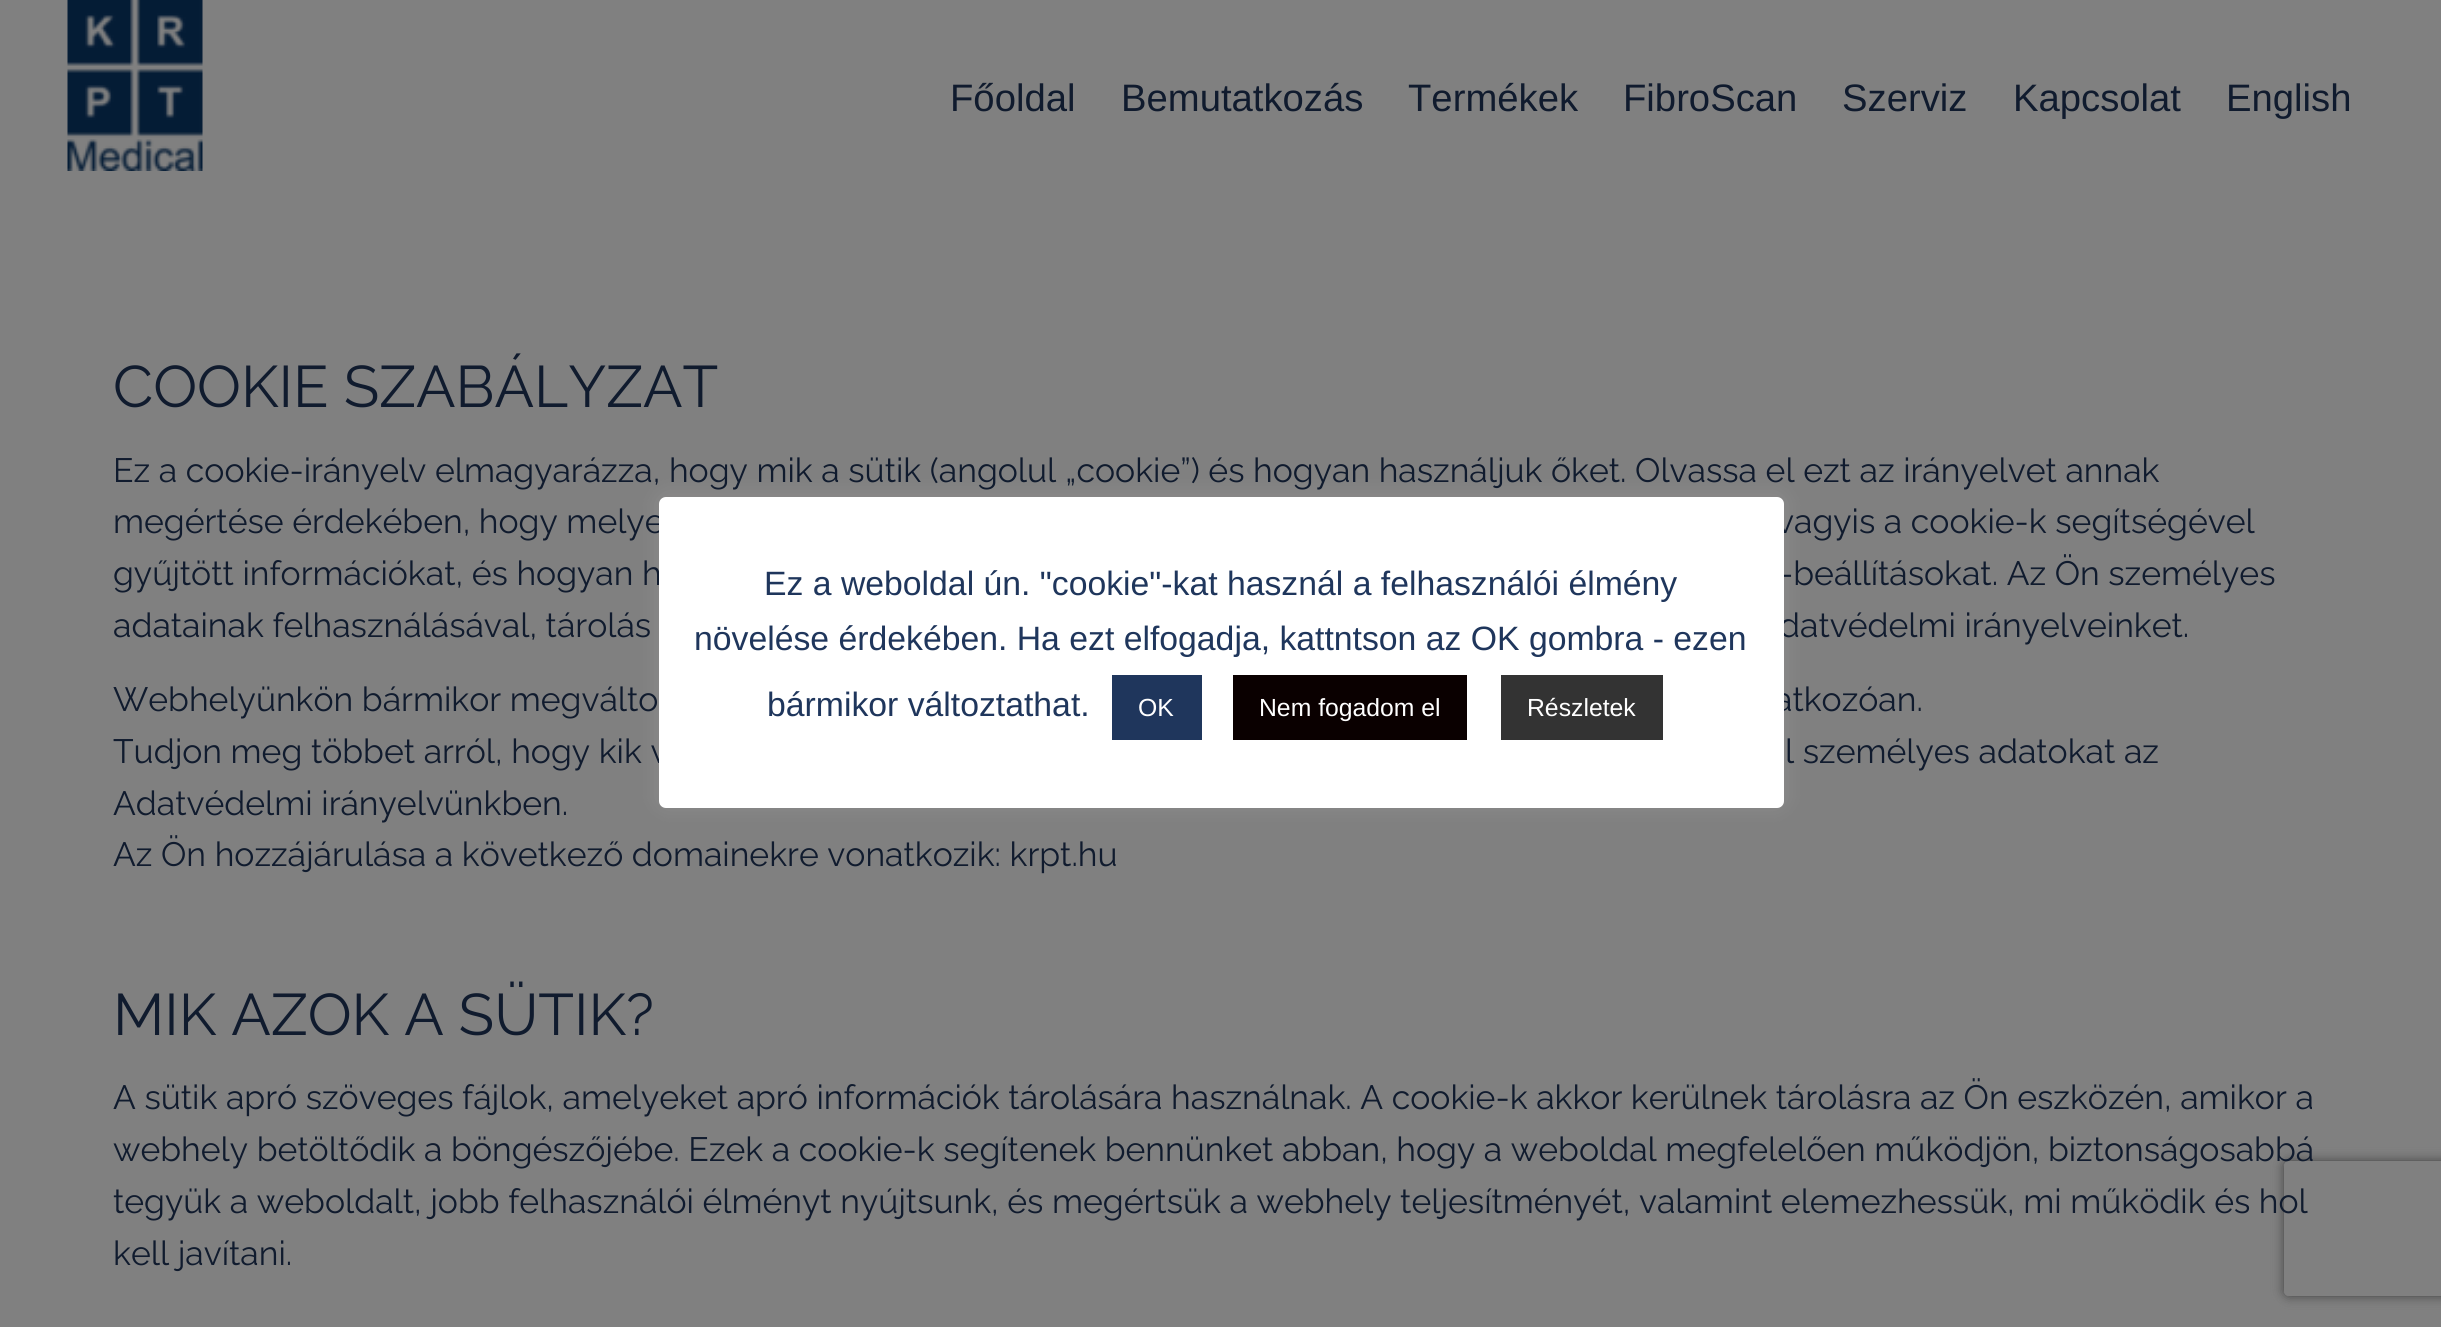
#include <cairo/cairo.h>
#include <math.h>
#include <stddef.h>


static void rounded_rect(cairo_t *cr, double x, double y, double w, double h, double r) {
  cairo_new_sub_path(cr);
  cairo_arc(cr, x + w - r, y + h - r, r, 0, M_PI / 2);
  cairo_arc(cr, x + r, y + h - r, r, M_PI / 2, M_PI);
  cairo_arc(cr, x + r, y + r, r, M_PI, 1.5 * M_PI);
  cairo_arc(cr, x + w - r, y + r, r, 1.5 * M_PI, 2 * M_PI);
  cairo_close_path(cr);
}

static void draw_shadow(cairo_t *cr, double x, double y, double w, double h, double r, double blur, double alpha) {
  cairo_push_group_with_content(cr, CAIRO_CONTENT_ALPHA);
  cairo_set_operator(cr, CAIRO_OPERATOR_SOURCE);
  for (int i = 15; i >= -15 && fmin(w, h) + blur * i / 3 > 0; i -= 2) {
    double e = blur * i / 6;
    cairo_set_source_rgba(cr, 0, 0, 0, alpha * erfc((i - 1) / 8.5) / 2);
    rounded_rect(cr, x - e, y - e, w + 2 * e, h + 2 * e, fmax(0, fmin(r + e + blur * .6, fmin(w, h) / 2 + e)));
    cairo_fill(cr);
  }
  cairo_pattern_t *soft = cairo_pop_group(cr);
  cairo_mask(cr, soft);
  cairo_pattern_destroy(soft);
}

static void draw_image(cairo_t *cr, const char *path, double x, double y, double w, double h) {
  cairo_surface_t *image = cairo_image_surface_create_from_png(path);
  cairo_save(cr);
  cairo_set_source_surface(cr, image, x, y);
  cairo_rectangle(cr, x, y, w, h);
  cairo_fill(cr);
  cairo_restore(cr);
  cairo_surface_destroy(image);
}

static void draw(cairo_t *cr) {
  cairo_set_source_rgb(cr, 128 / 255.0, 128 / 255.0, 128 / 255.0);
  cairo_paint(cr);
  draw_image(cr, "images/1.png", 67, 0, 136, 171);
  cairo_set_source_rgb(cr, 172 / 255.0, 171 / 255.0, 171 / 255.0);
  draw_shadow(cr, 659, 495, 1125, 311, 7, 11, 0.3);
  cairo_save(cr);
  cairo_set_fill_rule(cr, CAIRO_FILL_RULE_EVEN_ODD);
  cairo_new_path(cr);
  cairo_move_to(cr, 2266, 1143);
  cairo_line_to(cr, 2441, 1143);
  cairo_line_to(cr, 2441, 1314);
  cairo_line_to(cr, 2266, 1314);
  cairo_close_path(cr);
  cairo_move_to(cr, 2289, 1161);
  cairo_line_to(cr, 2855, 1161);
  cairo_curve_to(cr, 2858, 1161, 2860, 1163, 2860, 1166);
  cairo_line_to(cr, 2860, 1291);
  cairo_curve_to(cr, 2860, 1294, 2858, 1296, 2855, 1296);
  cairo_line_to(cr, 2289, 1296);
  cairo_curve_to(cr, 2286, 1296, 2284, 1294, 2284, 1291);
  cairo_line_to(cr, 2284, 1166);
  cairo_curve_to(cr, 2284, 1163, 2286, 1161, 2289, 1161);
  cairo_close_path(cr);
  cairo_clip(cr);
  cairo_set_source_rgb(cr, 64 / 255.0, 64 / 255.0, 64 / 255.0);
  draw_shadow(cr, 2284, 1161, 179, 135, 5, 5.5, 1);
  cairo_restore(cr);
  cairo_select_font_face(cr, "Liberation Sans", CAIRO_FONT_SLANT_NORMAL, CAIRO_FONT_WEIGHT_NORMAL);
  cairo_set_font_size(cr, 38.25);
  cairo_set_source_rgb(cr, 16 / 255.0, 27 / 255.0, 46 / 255.0);
  cairo_move_to(cr, 950, 111);
  cairo_show_text(cr, "Főoldal");
  cairo_move_to(cr, 1121, 111);
  cairo_show_text(cr, "Bemutatkozás");
  cairo_move_to(cr, 1408, 111);
  cairo_show_text(cr, "Termékek");
  cairo_move_to(cr, 1623, 111);
  cairo_show_text(cr, "FibroScan");
  cairo_move_to(cr, 1842, 111);
  cairo_show_text(cr, "Szerviz");
  cairo_move_to(cr, 2013, 111);
  cairo_show_text(cr, "Kapcsolat");
  cairo_move_to(cr, 2226, 111);
  cairo_show_text(cr, "English");
  cairo_select_font_face(cr, "Raleway", CAIRO_FONT_SLANT_NORMAL, CAIRO_FONT_WEIGHT_NORMAL);
  cairo_set_font_size(cr, 58.5);
  cairo_move_to(cr, 113, 407);
  cairo_show_text(cr, "COOKIE SZABÁLYZAT");
  cairo_set_font_size(cr, 33.75);
  cairo_move_to(cr, 113, 482);
  cairo_show_text(cr, "Ez a cookie-irányelv elmagyarázza, hogy mik a sütik (angolul „cookie”) és hogyan használjuk őket. Olvassa el ezt az irányelvet annak");
  cairo_move_to(cr, 113, 533);
  cairo_show_text(cr, "megértése érdekében, hogy melye");
  cairo_move_to(cr, 1776, 533);
  cairo_show_text(cr, "vagyis a cookie-k segítségével");
  cairo_move_to(cr, 113, 585);
  cairo_show_text(cr, "gyűjtött információkat, és hogyan h");
  cairo_move_to(cr, 1779, 585);
  cairo_show_text(cr, "-beállításokat. Az Ön személyes");
  cairo_move_to(cr, 113, 637);
  cairo_show_text(cr, "adatainak felhasználásával, tárolás");
  cairo_move_to(cr, 1779, 637);
  cairo_show_text(cr, "datvédelmi irányelveinket.");
  cairo_move_to(cr, 113, 711);
  cairo_show_text(cr, "Webhelyünkön bármikor megválto");
  cairo_move_to(cr, 1774, 711);
  cairo_show_text(cr, "atkozóan.");
  cairo_move_to(cr, 113, 763);
  cairo_show_text(cr, "Tudjon meg többet arról, hogy kik v");
  cairo_move_to(cr, 1785, 763);
  cairo_show_text(cr, "l személyes adatokat az");
  cairo_move_to(cr, 113, 815);
  cairo_show_text(cr, "Adatvédelmi irányelvünkben.");
  cairo_move_to(cr, 113, 866);
  cairo_show_text(cr, "Az Ön hozzájárulása a következő domainekre vonatkozik: krpt.hu");
  cairo_set_font_size(cr, 58.5);
  cairo_move_to(cr, 113, 1035);
  cairo_show_text(cr, "MIK AZOK A SÜTIK?");
  cairo_set_font_size(cr, 33.75);
  cairo_move_to(cr, 113, 1109);
  cairo_show_text(cr, "A sütik apró szöveges fájlok, amelyeket apró információk tárolására használnak. A cookie-k akkor kerülnek tárolásra az Ön eszközén, amikor a");
  cairo_move_to(cr, 113, 1161);
  cairo_show_text(cr, "webhely betöltődik a böngészőjébe. Ezek a cookie-k segítenek bennünket abban, hogy a weboldal megfelelően működjön, biztonságosabbá");
  cairo_move_to(cr, 113, 1213);
  cairo_show_text(cr, "tegyük a weboldalt, jobb felhasználói élményt nyújtsunk, és megértsük a webhely teljesítményét, valamint elemezhessük, mi működik és hol");
  cairo_move_to(cr, 113, 1265);
  cairo_show_text(cr, "kell javítani.");
  cairo_set_source_rgb(cr, 1, 1, 1);
  rounded_rect(cr, 659, 497, 1125, 311, 7);
  cairo_fill(cr);
  cairo_select_font_face(cr, "Liberation Sans", CAIRO_FONT_SLANT_NORMAL, CAIRO_FONT_WEIGHT_NORMAL);
  cairo_set_source_rgb(cr, 31 / 255.0, 54 / 255.0, 92 / 255.0);
  cairo_move_to(cr, 764, 595);
  cairo_show_text(cr, "Ez a weboldal ún. \"cookie\"-kat használ a felhasználói élmény");
  cairo_move_to(cr, 694, 650);
  cairo_show_text(cr, "növelése érdekében. Ha ezt elfogadja, kattntson az OK gombra - ezen");
  cairo_move_to(cr, 767, 716);
  cairo_show_text(cr, "bármikor változtathat.");
  cairo_rectangle(cr, 1112, 675, 90, 65);
  cairo_fill(cr);
  cairo_set_font_size(cr, 24.75);
  cairo_set_source_rgb(cr, 1, 1, 1);
  cairo_move_to(cr, 1138, 716);
  cairo_show_text(cr, "OK");
  cairo_set_source_rgb(cr, 10 / 255.0, 0, 0);
  cairo_rectangle(cr, 1233, 675, 234, 65);
  cairo_fill(cr);
  cairo_set_source_rgb(cr, 1, 1, 1);
  cairo_move_to(cr, 1259, 716);
  cairo_show_text(cr, "Nem fogadom el");
  cairo_set_source_rgb(cr, 51 / 255.0, 51 / 255.0, 51 / 255.0);
  cairo_rectangle(cr, 1501, 675, 162, 65);
  cairo_fill(cr);
  cairo_set_source_rgb(cr, 1, 1, 1);
  cairo_move_to(cr, 1527, 716);
  cairo_show_text(cr, "Részletek");
}

int main(void) {
  cairo_surface_t *surface = cairo_image_surface_create(CAIRO_FORMAT_RGB24, 2441, 1327);
  cairo_t *cr = cairo_create(surface);
  cairo_font_options_t *options = cairo_font_options_create();
  cairo_font_options_set_hint_metrics(options, CAIRO_HINT_METRICS_OFF);
  cairo_font_options_set_hint_style(options, CAIRO_HINT_STYLE_NONE);
  cairo_set_font_options(cr, options);
  cairo_set_miter_limit(cr, 4);
  draw(cr);
  cairo_surface_write_to_png(surface, "out.png");
  cairo_font_options_destroy(options);
  cairo_destroy(cr);
  cairo_surface_destroy(surface);
  return 0;
}
